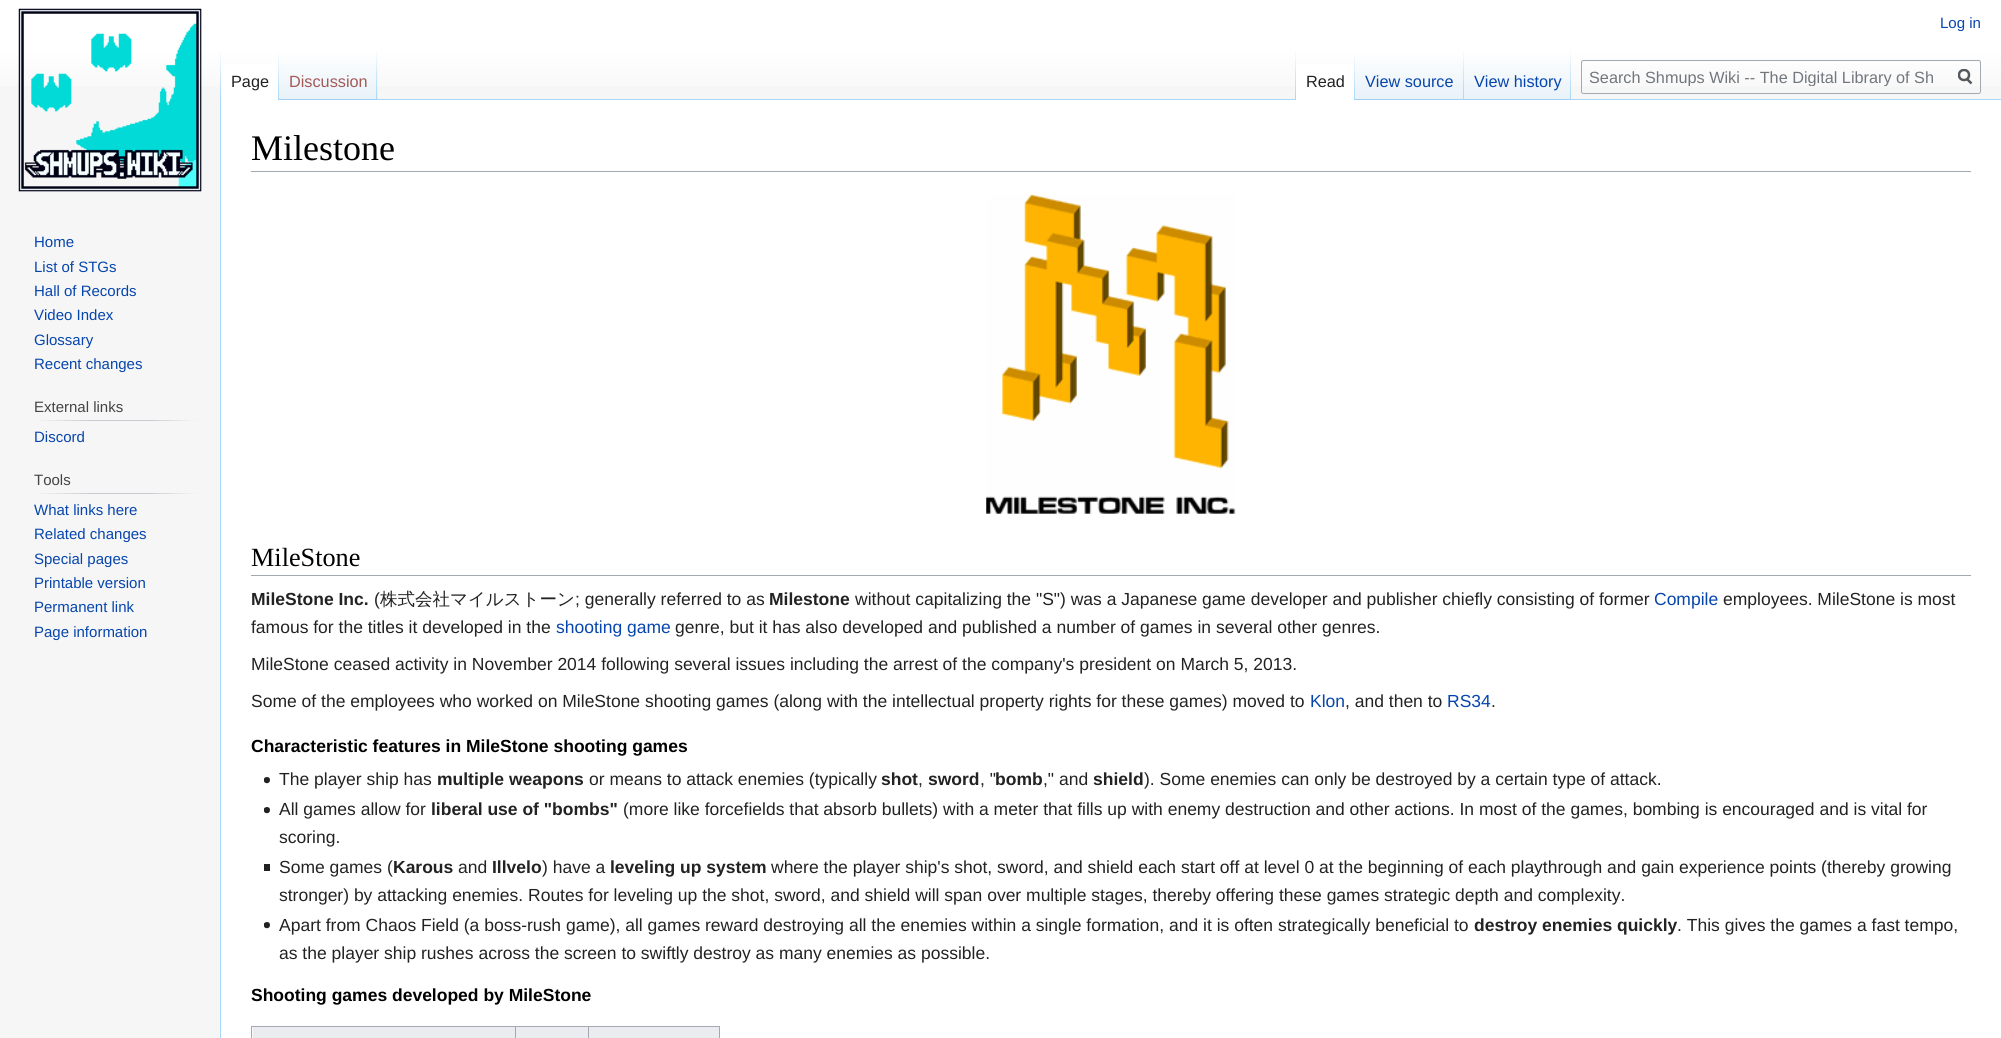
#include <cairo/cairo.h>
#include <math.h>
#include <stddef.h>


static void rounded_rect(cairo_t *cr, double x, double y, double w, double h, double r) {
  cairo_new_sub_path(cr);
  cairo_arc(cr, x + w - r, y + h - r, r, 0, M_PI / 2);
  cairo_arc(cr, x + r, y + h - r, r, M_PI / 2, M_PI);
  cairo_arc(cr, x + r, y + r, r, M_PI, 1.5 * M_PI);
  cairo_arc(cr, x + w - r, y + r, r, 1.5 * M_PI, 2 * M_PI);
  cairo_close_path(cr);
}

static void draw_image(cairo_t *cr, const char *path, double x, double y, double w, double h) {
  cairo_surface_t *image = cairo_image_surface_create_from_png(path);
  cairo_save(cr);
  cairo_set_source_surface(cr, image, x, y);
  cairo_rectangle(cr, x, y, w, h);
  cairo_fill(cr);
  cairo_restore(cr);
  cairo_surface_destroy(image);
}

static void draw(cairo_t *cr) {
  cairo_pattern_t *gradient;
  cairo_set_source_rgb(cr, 246 / 255.0, 246 / 255.0, 246 / 255.0);
  cairo_paint(cr);
  gradient = cairo_pattern_create_linear(1001, 0, 1001, 100);
  cairo_pattern_add_color_stop_rgba(gradient, 0.5, 1, 1, 1, 1);
  cairo_pattern_add_color_stop_rgba(gradient, 1, 246 / 255.0, 246 / 255.0, 246 / 255.0, 1);
  cairo_set_source(cr, gradient);
  cairo_pattern_destroy(gradient);
  cairo_rectangle(cr, 0, 0, 2001, 86);
  cairo_fill(cr);
  cairo_set_source_rgb(cr, 167 / 255.0, 215 / 255.0, 249 / 255.0);
  cairo_rectangle(cr, 220, 99, 1, 939);
  cairo_fill(cr);
  gradient = cairo_pattern_create_linear(221, 50, 221, 100);
  cairo_pattern_add_color_stop_rgba(gradient, 0, 167 / 255.0, 215 / 255.0, 249 / 255.0, 0);
  cairo_pattern_add_color_stop_rgba(gradient, 1, 167 / 255.0, 215 / 255.0, 249 / 255.0, 1);
  cairo_set_source(cr, gradient);
  cairo_pattern_destroy(gradient);
  cairo_rectangle(cr, 220, 50, 1, 50);
  cairo_fill(cr);
  cairo_set_source_rgb(cr, 1, 1, 1);
  cairo_rectangle(cr, 221, 64, 57, 36);
  cairo_fill(cr);
  gradient = cairo_pattern_create_linear(278, 50, 278, 100);
  cairo_pattern_add_color_stop_rgba(gradient, 0, 1, 1, 1, 1);
  cairo_pattern_add_color_stop_rgba(gradient, 1, 167 / 255.0, 215 / 255.0, 249 / 255.0, 1);
  cairo_set_source(cr, gradient);
  cairo_pattern_destroy(gradient);
  cairo_rectangle(cr, 278, 50, 1, 50);
  cairo_fill(cr);
  gradient = cairo_pattern_create_linear(328, 100, 328, 50);
  cairo_pattern_add_color_stop_rgba(gradient, 0, 119 / 255.0, 193 / 255.0, 246 / 255.0, 1);
  cairo_pattern_add_color_stop_rgba(gradient, 0.03, 232 / 255.0, 242 / 255.0, 248 / 255.0, 1);
  cairo_pattern_add_color_stop_rgba(gradient, 1, 1, 1, 1, 1);
  cairo_set_source(cr, gradient);
  cairo_pattern_destroy(gradient);
  cairo_rectangle(cr, 279, 57, 99, 43);
  cairo_fill(cr);
  gradient = cairo_pattern_create_linear(377, 50, 377, 100);
  cairo_pattern_add_color_stop_rgba(gradient, 0, 167 / 255.0, 215 / 255.0, 249 / 255.0, 0);
  cairo_pattern_add_color_stop_rgba(gradient, 1, 167 / 255.0, 215 / 255.0, 249 / 255.0, 1);
  cairo_set_source(cr, gradient);
  cairo_pattern_destroy(gradient);
  cairo_rectangle(cr, 376, 50, 1, 50);
  cairo_fill(cr);
  cairo_set_source_rgb(cr, 167 / 255.0, 215 / 255.0, 249 / 255.0);
  cairo_rectangle(cr, 378, 99, 1623, 1);
  cairo_fill(cr);
  gradient = cairo_pattern_create_linear(1296, 50, 1296, 100);
  cairo_pattern_add_color_stop_rgba(gradient, 0, 167 / 255.0, 215 / 255.0, 249 / 255.0, 0);
  cairo_pattern_add_color_stop_rgba(gradient, 1, 167 / 255.0, 215 / 255.0, 249 / 255.0, 1);
  cairo_set_source(cr, gradient);
  cairo_pattern_destroy(gradient);
  cairo_rectangle(cr, 1295, 50, 1, 50);
  cairo_fill(cr);
  cairo_set_source_rgb(cr, 1, 1, 1);
  cairo_rectangle(cr, 1296, 64, 58, 36);
  cairo_fill(cr);
  gradient = cairo_pattern_create_linear(1354, 50, 1354, 100);
  cairo_pattern_add_color_stop_rgba(gradient, 0, 1, 1, 1, 1);
  cairo_pattern_add_color_stop_rgba(gradient, 1, 167 / 255.0, 215 / 255.0, 249 / 255.0, 1);
  cairo_set_source(cr, gradient);
  cairo_pattern_destroy(gradient);
  cairo_rectangle(cr, 1354, 50, 1, 50);
  cairo_fill(cr);
  gradient = cairo_pattern_create_linear(1409, 100, 1409, 50);
  cairo_pattern_add_color_stop_rgba(gradient, 0, 119 / 255.0, 193 / 255.0, 246 / 255.0, 1);
  cairo_pattern_add_color_stop_rgba(gradient, 0.03, 232 / 255.0, 242 / 255.0, 248 / 255.0, 1);
  cairo_pattern_add_color_stop_rgba(gradient, 1, 1, 1, 1, 1);
  cairo_set_source(cr, gradient);
  cairo_pattern_destroy(gradient);
  cairo_rectangle(cr, 1355, 57, 109, 43);
  cairo_fill(cr);
  gradient = cairo_pattern_create_linear(1463, 50, 1463, 100);
  cairo_pattern_add_color_stop_rgba(gradient, 0, 167 / 255.0, 215 / 255.0, 249 / 255.0, 0);
  cairo_pattern_add_color_stop_rgba(gradient, 1, 167 / 255.0, 215 / 255.0, 249 / 255.0, 1);
  cairo_set_source(cr, gradient);
  cairo_pattern_destroy(gradient);
  cairo_rectangle(cr, 1463, 50, 1, 50);
  cairo_fill(cr);
  gradient = cairo_pattern_create_linear(1518, 100, 1518, 50);
  cairo_pattern_add_color_stop_rgba(gradient, 0, 119 / 255.0, 193 / 255.0, 246 / 255.0, 1);
  cairo_pattern_add_color_stop_rgba(gradient, 0.03, 232 / 255.0, 242 / 255.0, 248 / 255.0, 1);
  cairo_pattern_add_color_stop_rgba(gradient, 1, 1, 1, 1, 1);
  cairo_set_source(cr, gradient);
  cairo_pattern_destroy(gradient);
  cairo_rectangle(cr, 1464, 57, 107, 43);
  cairo_fill(cr);
  gradient = cairo_pattern_create_linear(1571, 50, 1571, 100);
  cairo_pattern_add_color_stop_rgba(gradient, 0, 167 / 255.0, 215 / 255.0, 249 / 255.0, 0);
  cairo_pattern_add_color_stop_rgba(gradient, 1, 167 / 255.0, 215 / 255.0, 249 / 255.0, 1);
  cairo_set_source(cr, gradient);
  cairo_pattern_destroy(gradient);
  cairo_rectangle(cr, 1570, 50, 1, 50);
  cairo_fill(cr);
  rounded_rect(cr, 1581.5, 60.5, 399, 33, 2);
  cairo_set_source_rgb(cr, 162 / 255.0, 169 / 255.0, 177 / 255.0);
  cairo_set_line_width(cr, 1);
  cairo_stroke(cr);
  cairo_new_path(cr);
  cairo_move_to(cr, 1971.5, 83.5);
  cairo_line_to(cr, 1966.5, 78.5);
  cairo_set_source_rgb(cr, 84 / 255.0, 89 / 255.0, 93 / 255.0);
  cairo_set_line_width(cr, 2.5);
  cairo_stroke(cr);
  cairo_save(cr);
  cairo_rectangle(cr, 1958, 69, 15, 16);
  cairo_clip(cr);
  cairo_arc(cr, 1964, 75, 5, 0, 2 * M_PI);
  cairo_stroke(cr);
  cairo_restore(cr);
  draw_image(cr, "images/1.png", 18, 8, 184, 184);
  gradient = cairo_pattern_create_linear(34, 421, 198, 421);
  cairo_pattern_add_color_stop_rgba(gradient, 0, 246 / 255.0, 246 / 255.0, 246 / 255.0, 1);
  cairo_pattern_add_color_stop_rgba(gradient, 0.35, 200 / 255.0, 204 / 255.0, 209 / 255.0, 1);
  cairo_pattern_add_color_stop_rgba(gradient, 0.7, 200 / 255.0, 204 / 255.0, 209 / 255.0, 1);
  cairo_pattern_add_color_stop_rgba(gradient, 1, 246 / 255.0, 246 / 255.0, 246 / 255.0, 1);
  cairo_set_source(cr, gradient);
  cairo_pattern_destroy(gradient);
  cairo_rectangle(cr, 34, 420, 164, 1);
  cairo_fill(cr);
  gradient = cairo_pattern_create_linear(34, 493, 198, 493);
  cairo_pattern_add_color_stop_rgba(gradient, 0, 246 / 255.0, 246 / 255.0, 246 / 255.0, 1);
  cairo_pattern_add_color_stop_rgba(gradient, 0.35, 200 / 255.0, 204 / 255.0, 209 / 255.0, 1);
  cairo_pattern_add_color_stop_rgba(gradient, 0.7, 200 / 255.0, 204 / 255.0, 209 / 255.0, 1);
  cairo_pattern_add_color_stop_rgba(gradient, 1, 246 / 255.0, 246 / 255.0, 246 / 255.0, 1);
  cairo_set_source(cr, gradient);
  cairo_pattern_destroy(gradient);
  cairo_rectangle(cr, 34, 493, 164, 1);
  cairo_fill(cr);
  cairo_set_source_rgb(cr, 1, 1, 1);
  cairo_rectangle(cr, 221, 100, 1780, 938);
  cairo_fill(cr);
  cairo_set_source_rgb(cr, 162 / 255.0, 169 / 255.0, 177 / 255.0);
  cairo_rectangle(cr, 251, 171, 1720, 1);
  cairo_fill(cr);
  draw_image(cr, "images/2.png", 986, 194, 250, 320);
  cairo_rectangle(cr, 251, 575, 1720, 1);
  cairo_fill(cr);
  draw_image(cr, "images/3.png", 264, 777, 6, 7);
  draw_image(cr, "images/3.png", 264, 807, 6, 7);
  cairo_set_source_rgb(cr, 34 / 255.0, 34 / 255.0, 34 / 255.0);
  cairo_rectangle(cr, 264, 864, 6, 7);
  cairo_fill(cr);
  draw_image(cr, "images/3.png", 264, 922, 6, 7);
  cairo_set_source_rgb(cr, 248 / 255.0, 249 / 255.0, 250 / 255.0);
  cairo_rectangle(cr, 252, 1027, 1, 11);
  cairo_fill(cr);
  cairo_set_source_rgb(cr, 162 / 255.0, 169 / 255.0, 177 / 255.0);
  cairo_rectangle(cr, 251, 1026, 469, 1);
  cairo_fill(cr);
  cairo_rectangle(cr, 719, 1026, 1, 12);
  cairo_fill(cr);
  cairo_rectangle(cr, 251, 1026, 1, 12);
  cairo_fill(cr);
  cairo_set_source_rgb(cr, 234 / 255.0, 236 / 255.0, 240 / 255.0);
  cairo_rectangle(cr, 253, 1027, 262, 11);
  cairo_fill(cr);
  cairo_rectangle(cr, 516, 1027, 72, 11);
  cairo_fill(cr);
  cairo_set_source_rgb(cr, 162 / 255.0, 169 / 255.0, 177 / 255.0);
  cairo_rectangle(cr, 515, 1026, 1, 12);
  cairo_fill(cr);
  cairo_set_source_rgb(cr, 234 / 255.0, 236 / 255.0, 240 / 255.0);
  cairo_rectangle(cr, 589, 1027, 130, 11);
  cairo_fill(cr);
  cairo_set_source_rgb(cr, 162 / 255.0, 169 / 255.0, 177 / 255.0);
  cairo_rectangle(cr, 588, 1026, 1, 12);
  cairo_fill(cr);
  cairo_select_font_face(cr, "Liberation Sans", CAIRO_FONT_SLANT_NORMAL, CAIRO_FONT_WEIGHT_NORMAL);
  cairo_set_font_size(cr, 15);
  cairo_set_source_rgb(cr, 6 / 255.0, 69 / 255.0, 173 / 255.0);
  cairo_move_to(cr, 1940, 28);
  cairo_show_text(cr, "Log in");
  cairo_set_font_size(cr, 16.25);
  cairo_set_source_rgb(cr, 34 / 255.0, 34 / 255.0, 34 / 255.0);
  cairo_move_to(cr, 231, 87);
  cairo_show_text(cr, "Page");
  cairo_set_source_rgb(cr, 165 / 255.0, 88 / 255.0, 88 / 255.0);
  cairo_move_to(cr, 289, 87);
  cairo_show_text(cr, "Discussion");
  cairo_set_source_rgb(cr, 34 / 255.0, 34 / 255.0, 34 / 255.0);
  cairo_move_to(cr, 1306, 87);
  cairo_show_text(cr, "Read");
  cairo_set_source_rgb(cr, 6 / 255.0, 69 / 255.0, 173 / 255.0);
  cairo_move_to(cr, 1365, 87);
  cairo_show_text(cr, "View source");
  cairo_move_to(cr, 1474, 87);
  cairo_show_text(cr, "View history");
  cairo_save(cr);
  cairo_rectangle(cr, 1589, 68, 345, 18);
  cairo_clip(cr);
  cairo_set_source_rgb(cr, 114 / 255.0, 119 / 255.0, 125 / 255.0);
  cairo_move_to(cr, 1589, 83);
  cairo_show_text(cr, "Search Shmups Wiki -- The Digital Library of Sh");
  cairo_restore(cr);
  cairo_set_font_size(cr, 15);
  cairo_move_to(cr, 34, 247);
  cairo_show_text(cr, "Home");
  cairo_move_to(cr, 34, 272);
  cairo_show_text(cr, "List of STGs");
  cairo_move_to(cr, 34, 296);
  cairo_show_text(cr, "Hall of Records");
  cairo_move_to(cr, 34, 320);
  cairo_show_text(cr, "Video Index");
  cairo_move_to(cr, 34, 345);
  cairo_show_text(cr, "Glossary");
  cairo_move_to(cr, 34, 369);
  cairo_show_text(cr, "Recent changes");
  cairo_set_source_rgb(cr, 68 / 255.0, 68 / 255.0, 68 / 255.0);
  cairo_move_to(cr, 34, 412);
  cairo_show_text(cr, "External links");
  cairo_set_source_rgb(cr, 6 / 255.0, 69 / 255.0, 173 / 255.0);
  cairo_move_to(cr, 34, 442);
  cairo_show_text(cr, "Discord");
  cairo_set_source_rgb(cr, 68 / 255.0, 68 / 255.0, 68 / 255.0);
  cairo_move_to(cr, 34, 485);
  cairo_show_text(cr, "Tools");
  cairo_set_source_rgb(cr, 6 / 255.0, 69 / 255.0, 173 / 255.0);
  cairo_move_to(cr, 34, 515);
  cairo_show_text(cr, "What links here");
  cairo_move_to(cr, 34, 539);
  cairo_show_text(cr, "Related changes");
  cairo_move_to(cr, 34, 564);
  cairo_show_text(cr, "Special pages");
  cairo_move_to(cr, 34, 588);
  cairo_show_text(cr, "Printable version");
  cairo_move_to(cr, 34, 612);
  cairo_show_text(cr, "Permanent link");
  cairo_move_to(cr, 34, 637);
  cairo_show_text(cr, "Page information");
  cairo_select_font_face(cr, "Liberation Serif", CAIRO_FONT_SLANT_NORMAL, CAIRO_FONT_WEIGHT_NORMAL);
  cairo_set_font_size(cr, 36);
  cairo_set_source_rgb(cr, 0, 0, 0);
  cairo_move_to(cr, 251, 160);
  cairo_show_text(cr, "Milestone");
  cairo_set_font_size(cr, 26.25);
  cairo_move_to(cr, 251, 566);
  cairo_show_text(cr, "MileStone");
  cairo_select_font_face(cr, "Liberation Sans", CAIRO_FONT_SLANT_NORMAL, CAIRO_FONT_WEIGHT_BOLD);
  cairo_set_font_size(cr, 17.5);
  cairo_set_source_rgb(cr, 34 / 255.0, 34 / 255.0, 34 / 255.0);
  cairo_move_to(cr, 251, 605);
  cairo_show_text(cr, "MileStone Inc.");
  cairo_select_font_face(cr, "Liberation Sans", CAIRO_FONT_SLANT_NORMAL, CAIRO_FONT_WEIGHT_NORMAL);
  cairo_move_to(cr, 374, 605);
  cairo_show_text(cr, "(");
  cairo_select_font_face(cr, "WenQuanYi Zen Hei Medium", CAIRO_FONT_SLANT_NORMAL, CAIRO_FONT_WEIGHT_NORMAL);
  cairo_move_to(cr, 380, 605);
  cairo_show_text(cr, "株式会社マイルストーン");
  cairo_select_font_face(cr, "Liberation Sans", CAIRO_FONT_SLANT_NORMAL, CAIRO_FONT_WEIGHT_NORMAL);
  cairo_move_to(cr, 575, 605);
  cairo_show_text(cr, "; generally referred to as");
  cairo_select_font_face(cr, "Liberation Sans", CAIRO_FONT_SLANT_NORMAL, CAIRO_FONT_WEIGHT_BOLD);
  cairo_move_to(cr, 769, 605);
  cairo_show_text(cr, "Milestone");
  cairo_select_font_face(cr, "Liberation Sans", CAIRO_FONT_SLANT_NORMAL, CAIRO_FONT_WEIGHT_NORMAL);
  cairo_move_to(cr, 855, 605);
  cairo_show_text(cr, "without capitalizing the \"S\") was a Japanese game developer and publisher chiefly consisting of former");
  cairo_set_source_rgb(cr, 6 / 255.0, 69 / 255.0, 173 / 255.0);
  cairo_move_to(cr, 1654, 605);
  cairo_show_text(cr, "Compile");
  cairo_set_source_rgb(cr, 34 / 255.0, 34 / 255.0, 34 / 255.0);
  cairo_move_to(cr, 1723, 605);
  cairo_show_text(cr, "employees. MileStone is most");
  cairo_move_to(cr, 251, 633);
  cairo_show_text(cr, "famous for the titles it developed in the");
  cairo_set_source_rgb(cr, 6 / 255.0, 69 / 255.0, 173 / 255.0);
  cairo_move_to(cr, 556, 633);
  cairo_show_text(cr, "shooting game");
  cairo_set_source_rgb(cr, 34 / 255.0, 34 / 255.0, 34 / 255.0);
  cairo_move_to(cr, 675, 633);
  cairo_show_text(cr, "genre, but it has also developed and published a number of games in several other genres.");
  cairo_move_to(cr, 251, 670);
  cairo_show_text(cr, "MileStone ceased activity in November 2014 following several issues including the arrest of the company's president on March 5, 2013.");
  cairo_move_to(cr, 251, 707);
  cairo_show_text(cr, "Some of the employees who worked on MileStone shooting games (along with the intellectual property rights for these games) moved to");
  cairo_set_source_rgb(cr, 6 / 255.0, 69 / 255.0, 173 / 255.0);
  cairo_move_to(cr, 1310, 707);
  cairo_show_text(cr, "Klon");
  cairo_set_source_rgb(cr, 34 / 255.0, 34 / 255.0, 34 / 255.0);
  cairo_move_to(cr, 1345, 707);
  cairo_show_text(cr, ", and then to");
  cairo_set_source_rgb(cr, 6 / 255.0, 69 / 255.0, 173 / 255.0);
  cairo_move_to(cr, 1447, 707);
  cairo_show_text(cr, "RS34");
  cairo_set_source_rgb(cr, 34 / 255.0, 34 / 255.0, 34 / 255.0);
  cairo_move_to(cr, 1491, 707);
  cairo_show_text(cr, ".");
  cairo_select_font_face(cr, "Liberation Sans", CAIRO_FONT_SLANT_NORMAL, CAIRO_FONT_WEIGHT_BOLD);
  cairo_set_source_rgb(cr, 0, 0, 0);
  cairo_move_to(cr, 251, 752);
  cairo_show_text(cr, "Characteristic features in MileStone shooting games");
  cairo_select_font_face(cr, "Liberation Sans", CAIRO_FONT_SLANT_NORMAL, CAIRO_FONT_WEIGHT_NORMAL);
  cairo_set_source_rgb(cr, 34 / 255.0, 34 / 255.0, 34 / 255.0);
  cairo_move_to(cr, 279, 785);
  cairo_show_text(cr, "The player ship has");
  cairo_select_font_face(cr, "Liberation Sans", CAIRO_FONT_SLANT_NORMAL, CAIRO_FONT_WEIGHT_BOLD);
  cairo_move_to(cr, 437, 785);
  cairo_show_text(cr, "multiple weapons");
  cairo_select_font_face(cr, "Liberation Sans", CAIRO_FONT_SLANT_NORMAL, CAIRO_FONT_WEIGHT_NORMAL);
  cairo_move_to(cr, 589, 785);
  cairo_show_text(cr, "or means to attack enemies (typically");
  cairo_select_font_face(cr, "Liberation Sans", CAIRO_FONT_SLANT_NORMAL, CAIRO_FONT_WEIGHT_BOLD);
  cairo_move_to(cr, 881, 785);
  cairo_show_text(cr, "shot");
  cairo_select_font_face(cr, "Liberation Sans", CAIRO_FONT_SLANT_NORMAL, CAIRO_FONT_WEIGHT_NORMAL);
  cairo_move_to(cr, 918, 785);
  cairo_show_text(cr, ",");
  cairo_select_font_face(cr, "Liberation Sans", CAIRO_FONT_SLANT_NORMAL, CAIRO_FONT_WEIGHT_BOLD);
  cairo_move_to(cr, 928, 785);
  cairo_show_text(cr, "sword");
  cairo_select_font_face(cr, "Liberation Sans", CAIRO_FONT_SLANT_NORMAL, CAIRO_FONT_WEIGHT_NORMAL);
  cairo_move_to(cr, 980, 785);
  cairo_show_text(cr, ", \"");
  cairo_select_font_face(cr, "Liberation Sans", CAIRO_FONT_SLANT_NORMAL, CAIRO_FONT_WEIGHT_BOLD);
  cairo_move_to(cr, 995, 785);
  cairo_show_text(cr, "bomb");
  cairo_select_font_face(cr, "Liberation Sans", CAIRO_FONT_SLANT_NORMAL, CAIRO_FONT_WEIGHT_NORMAL);
  cairo_move_to(cr, 1043, 785);
  cairo_show_text(cr, ",\" and");
  cairo_select_font_face(cr, "Liberation Sans", CAIRO_FONT_SLANT_NORMAL, CAIRO_FONT_WEIGHT_BOLD);
  cairo_move_to(cr, 1093, 785);
  cairo_show_text(cr, "shield");
  cairo_select_font_face(cr, "Liberation Sans", CAIRO_FONT_SLANT_NORMAL, CAIRO_FONT_WEIGHT_NORMAL);
  cairo_move_to(cr, 1144, 785);
  cairo_show_text(cr, "). Some enemies can only be destroyed by a certain type of attack.");
  cairo_move_to(cr, 279, 815);
  cairo_show_text(cr, "All games allow for");
  cairo_select_font_face(cr, "Liberation Sans", CAIRO_FONT_SLANT_NORMAL, CAIRO_FONT_WEIGHT_BOLD);
  cairo_move_to(cr, 431, 815);
  cairo_show_text(cr, "liberal use of \"bombs\"");
  cairo_select_font_face(cr, "Liberation Sans", CAIRO_FONT_SLANT_NORMAL, CAIRO_FONT_WEIGHT_NORMAL);
  cairo_move_to(cr, 623, 815);
  cairo_show_text(cr, "(more like forcefields that absorb bullets) with a meter that fills up with enemy destruction and other actions. In most of the games, bombing is encouraged and is vital for");
  cairo_move_to(cr, 279, 843);
  cairo_show_text(cr, "scoring.");
  cairo_move_to(cr, 279, 873);
  cairo_show_text(cr, "Some games (");
  cairo_select_font_face(cr, "Liberation Sans", CAIRO_FONT_SLANT_NORMAL, CAIRO_FONT_WEIGHT_BOLD);
  cairo_move_to(cr, 393, 873);
  cairo_show_text(cr, "Karous");
  cairo_select_font_face(cr, "Liberation Sans", CAIRO_FONT_SLANT_NORMAL, CAIRO_FONT_WEIGHT_NORMAL);
  cairo_move_to(cr, 458, 873);
  cairo_show_text(cr, "and");
  cairo_select_font_face(cr, "Liberation Sans", CAIRO_FONT_SLANT_NORMAL, CAIRO_FONT_WEIGHT_BOLD);
  cairo_move_to(cr, 492, 873);
  cairo_show_text(cr, "Illvelo");
  cairo_select_font_face(cr, "Liberation Sans", CAIRO_FONT_SLANT_NORMAL, CAIRO_FONT_WEIGHT_NORMAL);
  cairo_move_to(cr, 542, 873);
  cairo_show_text(cr, ") have a");
  cairo_select_font_face(cr, "Liberation Sans", CAIRO_FONT_SLANT_NORMAL, CAIRO_FONT_WEIGHT_BOLD);
  cairo_move_to(cr, 610, 873);
  cairo_show_text(cr, "leveling up system");
  cairo_select_font_face(cr, "Liberation Sans", CAIRO_FONT_SLANT_NORMAL, CAIRO_FONT_WEIGHT_NORMAL);
  cairo_move_to(cr, 771, 873);
  cairo_show_text(cr, "where the player ship's shot, sword, and shield each start off at level 0 at the beginning of each playthrough and gain experience points (thereby growing");
  cairo_move_to(cr, 279, 901);
  cairo_show_text(cr, "stronger) by attacking enemies. Routes for leveling up the shot, sword, and shield will span over multiple stages, thereby offering these games strategic depth and complexity.");
  cairo_move_to(cr, 279, 931);
  cairo_show_text(cr, "Apart from Chaos Field (a boss-rush game), all games reward destroying all the enemies within a single formation, and it is often strategically beneficial to");
  cairo_select_font_face(cr, "Liberation Sans", CAIRO_FONT_SLANT_NORMAL, CAIRO_FONT_WEIGHT_BOLD);
  cairo_move_to(cr, 1474, 931);
  cairo_show_text(cr, "destroy enemies quickly");
  cairo_select_font_face(cr, "Liberation Sans", CAIRO_FONT_SLANT_NORMAL, CAIRO_FONT_WEIGHT_NORMAL);
  cairo_move_to(cr, 1677, 931);
  cairo_show_text(cr, ". This gives the games a fast tempo,");
  cairo_move_to(cr, 279, 959);
  cairo_show_text(cr, "as the player ship rushes across the screen to swiftly destroy as many enemies as possible.");
  cairo_select_font_face(cr, "Liberation Sans", CAIRO_FONT_SLANT_NORMAL, CAIRO_FONT_WEIGHT_BOLD);
  cairo_set_source_rgb(cr, 0, 0, 0);
  cairo_move_to(cr, 251, 1001);
  cairo_show_text(cr, "Shooting games developed by MileStone");
}

int main(void) {
  cairo_surface_t *surface = cairo_image_surface_create(CAIRO_FORMAT_RGB24, 2001, 1038);
  cairo_t *cr = cairo_create(surface);
  cairo_font_options_t *options = cairo_font_options_create();
  cairo_font_options_set_hint_metrics(options, CAIRO_HINT_METRICS_OFF);
  cairo_font_options_set_hint_style(options, CAIRO_HINT_STYLE_NONE);
  cairo_set_font_options(cr, options);
  cairo_set_miter_limit(cr, 4);
  draw(cr);
  cairo_surface_write_to_png(surface, "out.png");
  cairo_font_options_destroy(options);
  cairo_destroy(cr);
  cairo_surface_destroy(surface);
  return 0;
}
